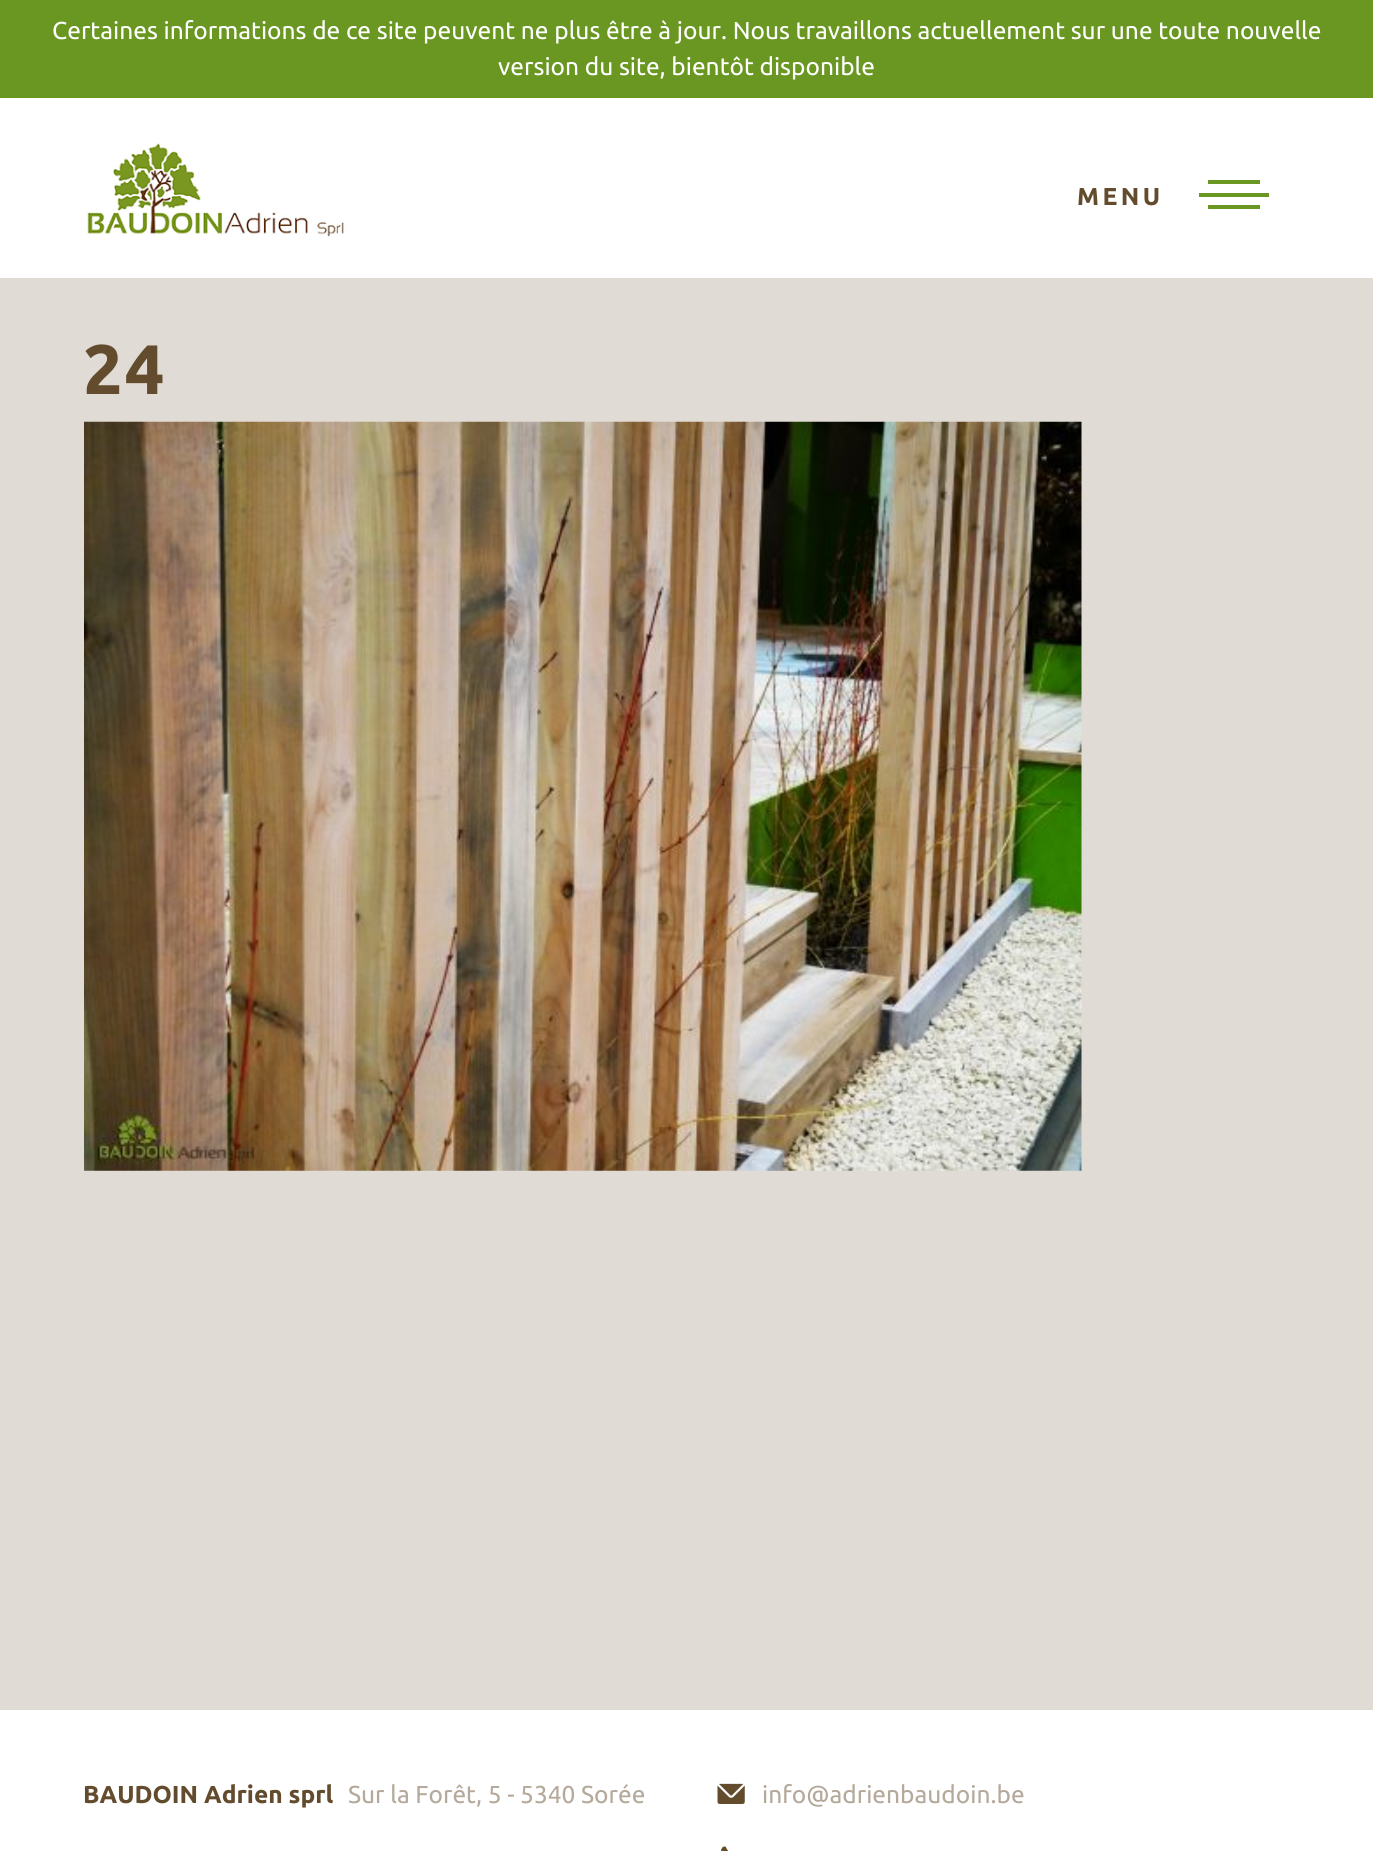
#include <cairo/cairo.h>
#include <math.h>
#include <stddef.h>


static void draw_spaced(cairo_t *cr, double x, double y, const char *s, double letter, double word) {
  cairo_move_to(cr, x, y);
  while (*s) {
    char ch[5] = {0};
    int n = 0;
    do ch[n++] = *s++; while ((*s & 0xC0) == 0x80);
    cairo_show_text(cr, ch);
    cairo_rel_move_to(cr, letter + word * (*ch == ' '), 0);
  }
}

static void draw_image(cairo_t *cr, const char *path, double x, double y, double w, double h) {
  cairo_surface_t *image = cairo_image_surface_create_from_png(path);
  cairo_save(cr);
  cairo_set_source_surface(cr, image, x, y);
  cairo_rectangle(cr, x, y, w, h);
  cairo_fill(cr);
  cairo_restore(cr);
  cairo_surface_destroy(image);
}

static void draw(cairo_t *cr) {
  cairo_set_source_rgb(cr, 225 / 255.0, 219 / 255.0, 214 / 255.0);
  cairo_paint(cr);
  cairo_set_source_rgb(cr, 105 / 255.0, 151 / 255.0, 33 / 255.0);
  cairo_rectangle(cr, 0, 0, 1373, 98);
  cairo_fill(cr);
  cairo_set_source_rgb(cr, 1, 1, 1);
  cairo_rectangle(cr, 0, 98, 1373, 180);
  cairo_fill(cr);
  draw_image(cr, "images/1.png", 86, 143, 258, 94);
  cairo_set_source_rgb(cr, 105 / 255.0, 151 / 255.0, 33 / 255.0);
  cairo_rectangle(cr, 1208, 180, 52, 4);
  cairo_fill(cr);
  cairo_rectangle(cr, 1199, 193, 70, 4);
  cairo_fill(cr);
  cairo_rectangle(cr, 1208, 205, 52, 4);
  cairo_fill(cr);
  draw_image(cr, "images/2.png", 84, 421, 998, 750);
  cairo_set_source_rgb(cr, 1, 1, 1);
  cairo_rectangle(cr, 0, 1710, 1373, 141);
  cairo_fill(cr);
  draw_image(cr, "images/3.png", 717, 1783, 28, 21);
  draw_image(cr, "images/4.png", 721, 1846, 7, 5);
  cairo_select_font_face(cr, "Ubuntu", CAIRO_FONT_SLANT_NORMAL, CAIRO_FONT_WEIGHT_NORMAL);
  cairo_set_font_size(cr, 24.5);
  cairo_move_to(cr, 52, 39);
  cairo_show_text(cr, "Certaines informations de ce site peuvent ne plus être à jour. Nous travaillons actuellement sur une toute nouvelle");
  cairo_move_to(cr, 498, 75);
  cairo_show_text(cr, "version du site, bientôt disponible");
  cairo_select_font_face(cr, "Ubuntu", CAIRO_FONT_SLANT_NORMAL, CAIRO_FONT_WEIGHT_BOLD);
  cairo_set_source_rgb(cr, 99 / 255.0, 76 / 255.0, 45 / 255.0);
  draw_spaced(cr, 1077, 205, "MENU", 3.5, 0);
  cairo_set_font_size(cr, 70);
  draw_spaced(cr, 83, 394, "24", 2, 0);
  cairo_set_font_size(cr, 24.5);
  cairo_move_to(cr, 83, 1803);
  cairo_show_text(cr, "BAUDOIN Adrien sprl");
  cairo_select_font_face(cr, "Ubuntu", CAIRO_FONT_SLANT_NORMAL, CAIRO_FONT_WEIGHT_NORMAL);
  cairo_set_source_rgb(cr, 180 / 255.0, 169 / 255.0, 155 / 255.0);
  cairo_move_to(cr, 348, 1803);
  cairo_show_text(cr, "Sur la Forêt, 5 - 5340 Sorée");
  cairo_move_to(cr, 762, 1803);
  cairo_show_text(cr, "info@adrienbaudoin.be");
}

int main(void) {
  cairo_surface_t *surface = cairo_image_surface_create(CAIRO_FORMAT_RGB24, 1373, 1851);
  cairo_t *cr = cairo_create(surface);
  cairo_font_options_t *options = cairo_font_options_create();
  cairo_font_options_set_hint_metrics(options, CAIRO_HINT_METRICS_OFF);
  cairo_font_options_set_hint_style(options, CAIRO_HINT_STYLE_NONE);
  cairo_set_font_options(cr, options);
  cairo_set_miter_limit(cr, 4);
  draw(cr);
  cairo_surface_write_to_png(surface, "out.png");
  cairo_font_options_destroy(options);
  cairo_destroy(cr);
  cairo_surface_destroy(surface);
  return 0;
}
